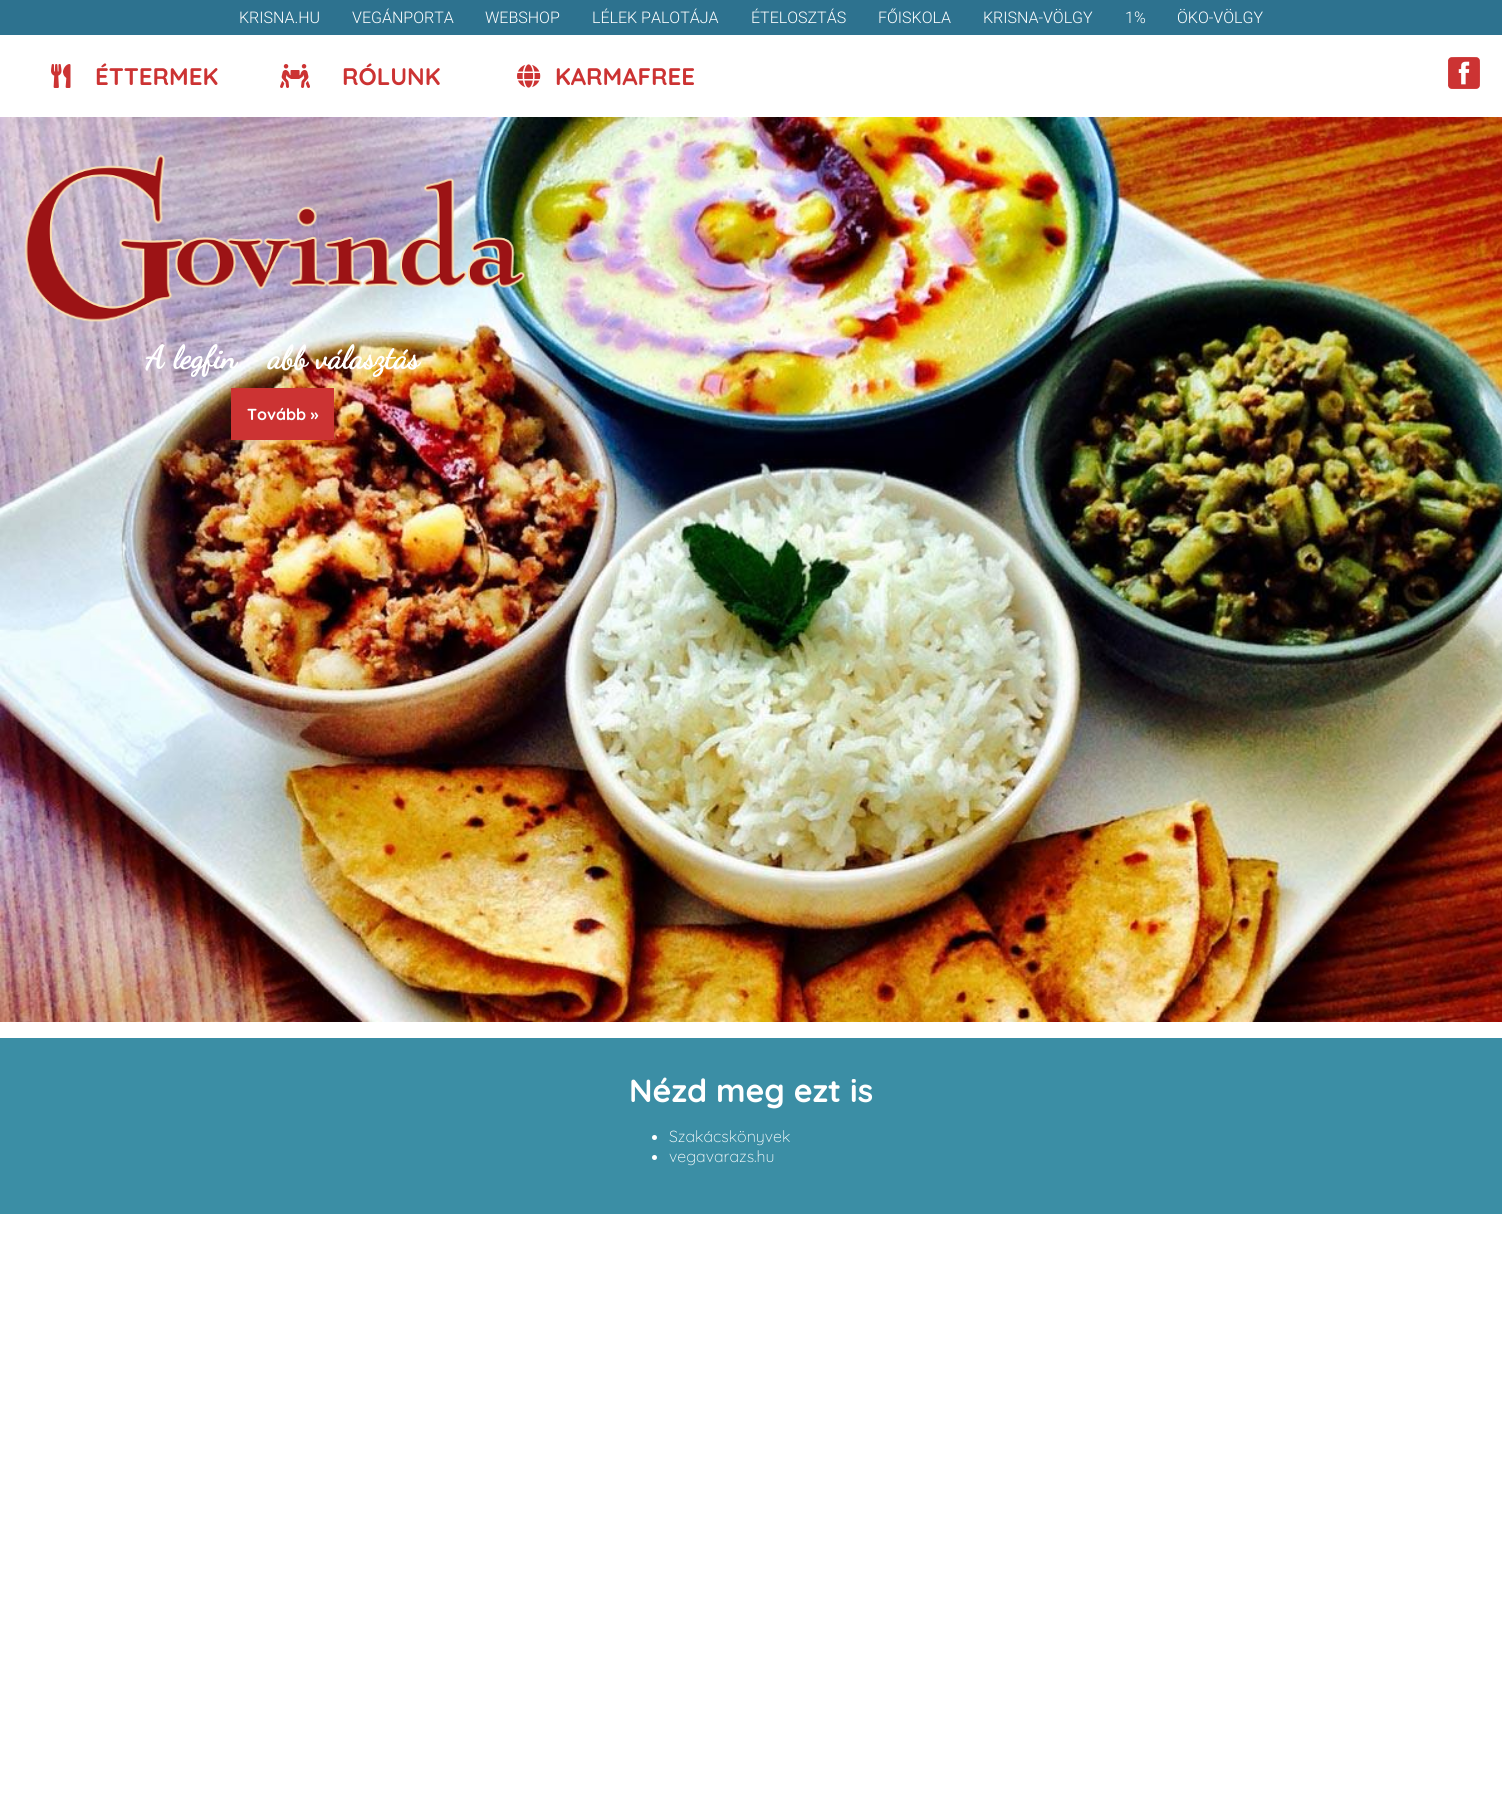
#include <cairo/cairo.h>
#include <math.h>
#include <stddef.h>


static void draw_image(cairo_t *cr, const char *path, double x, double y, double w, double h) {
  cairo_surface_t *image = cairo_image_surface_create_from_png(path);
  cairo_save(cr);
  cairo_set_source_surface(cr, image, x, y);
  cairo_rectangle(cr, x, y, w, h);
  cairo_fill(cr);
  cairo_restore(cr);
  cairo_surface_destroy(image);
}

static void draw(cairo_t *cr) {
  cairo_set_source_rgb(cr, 1, 1, 1);
  cairo_paint(cr);
  cairo_set_source_rgb(cr, 45 / 255.0, 114 / 255.0, 143 / 255.0);
  cairo_rectangle(cr, 0, 0, 1502, 35);
  cairo_fill(cr);
  draw_image(cr, "images/1.png", 51, 64, 20, 24);
  draw_image(cr, "images/2.png", 280, 64, 30, 24);
  draw_image(cr, "images/3.png", 517, 64, 24, 24);
  draw_image(cr, "images/4.png", 1448, 57, 32, 32);
  draw_image(cr, "images/5.png", 0, 117, 1502, 905);
  draw_image(cr, "images/6.png", 24, 154, 502, 168);
  cairo_set_source_rgb(cr, 204 / 255.0, 51 / 255.0, 51 / 255.0);
  cairo_rectangle(cr, 231, 388, 103, 52);
  cairo_fill(cr);
  cairo_set_source_rgb(cr, 59 / 255.0, 142 / 255.0, 165 / 255.0);
  cairo_rectangle(cr, 0, 1038, 1502, 176);
  cairo_fill(cr);
  cairo_set_source_rgb(cr, 1, 1, 1);
  cairo_arc(cr, 654.5, 1137.5, 2.5, 0, 2 * M_PI);
  cairo_fill(cr);
  cairo_arc(cr, 654.5, 1157.5, 2.5, 0, 2 * M_PI);
  cairo_fill(cr);
  cairo_select_font_face(cr, "Roboto Light", CAIRO_FONT_SLANT_NORMAL, CAIRO_FONT_WEIGHT_NORMAL);
  cairo_set_font_size(cr, 16);
  cairo_move_to(cr, 239, 23);
  cairo_show_text(cr, "KRISNA.HU");
  cairo_move_to(cr, 352, 23);
  cairo_show_text(cr, "VEGÁNPORTA");
  cairo_move_to(cr, 485, 23);
  cairo_show_text(cr, "WEBSHOP");
  cairo_move_to(cr, 592, 23);
  cairo_show_text(cr, "LÉLEK PALOTÁJA");
  cairo_move_to(cr, 751, 23);
  cairo_show_text(cr, "ÉTELOSZTÁS");
  cairo_move_to(cr, 878, 23);
  cairo_show_text(cr, "FŐISKOLA");
  cairo_move_to(cr, 983, 23);
  cairo_show_text(cr, "KRISNA-VÖLGY");
  cairo_move_to(cr, 1125, 23);
  cairo_show_text(cr, "1%");
  cairo_move_to(cr, 1177, 23);
  cairo_show_text(cr, "ÖKO-VÖLGY");
  cairo_select_font_face(cr, "Quicksand", CAIRO_FONT_SLANT_NORMAL, CAIRO_FONT_WEIGHT_BOLD);
  cairo_set_font_size(cr, 24);
  cairo_set_source_rgb(cr, 204 / 255.0, 51 / 255.0, 51 / 255.0);
  cairo_move_to(cr, 95, 85);
  cairo_show_text(cr, "ÉTTERMEK");
  cairo_move_to(cr, 342, 85);
  cairo_show_text(cr, "RÓLUNK");
  cairo_move_to(cr, 555, 85);
  cairo_show_text(cr, "KARMAFREE");
  cairo_select_font_face(cr, "Dancing Script", CAIRO_FONT_SLANT_NORMAL, CAIRO_FONT_WEIGHT_BOLD);
  cairo_set_font_size(cr, 32);
  cairo_set_source_rgb(cr, 1, 1, 1);
  cairo_move_to(cr, 146, 368);
  cairo_show_text(cr, "A legfin");
  cairo_move_to(cr, 268, 368);
  cairo_show_text(cr, "abb választás");
  cairo_select_font_face(cr, "Quicksand", CAIRO_FONT_SLANT_NORMAL, CAIRO_FONT_WEIGHT_BOLD);
  cairo_set_font_size(cr, 16);
  cairo_move_to(cr, 247, 420);
  cairo_show_text(cr, "Tovább »");
  cairo_set_font_size(cr, 32);
  cairo_move_to(cr, 629, 1102);
  cairo_show_text(cr, "Nézd meg ezt is");
  cairo_select_font_face(cr, "Quicksand Light", CAIRO_FONT_SLANT_NORMAL, CAIRO_FONT_WEIGHT_NORMAL);
  cairo_set_font_size(cr, 16);
  cairo_move_to(cr, 669, 1142);
  cairo_show_text(cr, "Szakácskönyvek");
  cairo_move_to(cr, 669, 1162);
  cairo_show_text(cr, "vegavarazs.hu");
}

int main(void) {
  cairo_surface_t *surface = cairo_image_surface_create(CAIRO_FORMAT_RGB24, 1502, 1810);
  cairo_t *cr = cairo_create(surface);
  cairo_font_options_t *options = cairo_font_options_create();
  cairo_font_options_set_hint_metrics(options, CAIRO_HINT_METRICS_OFF);
  cairo_font_options_set_hint_style(options, CAIRO_HINT_STYLE_NONE);
  cairo_set_font_options(cr, options);
  cairo_set_miter_limit(cr, 4);
  draw(cr);
  cairo_surface_write_to_png(surface, "out.png");
  cairo_font_options_destroy(options);
  cairo_destroy(cr);
  cairo_surface_destroy(surface);
  return 0;
}
